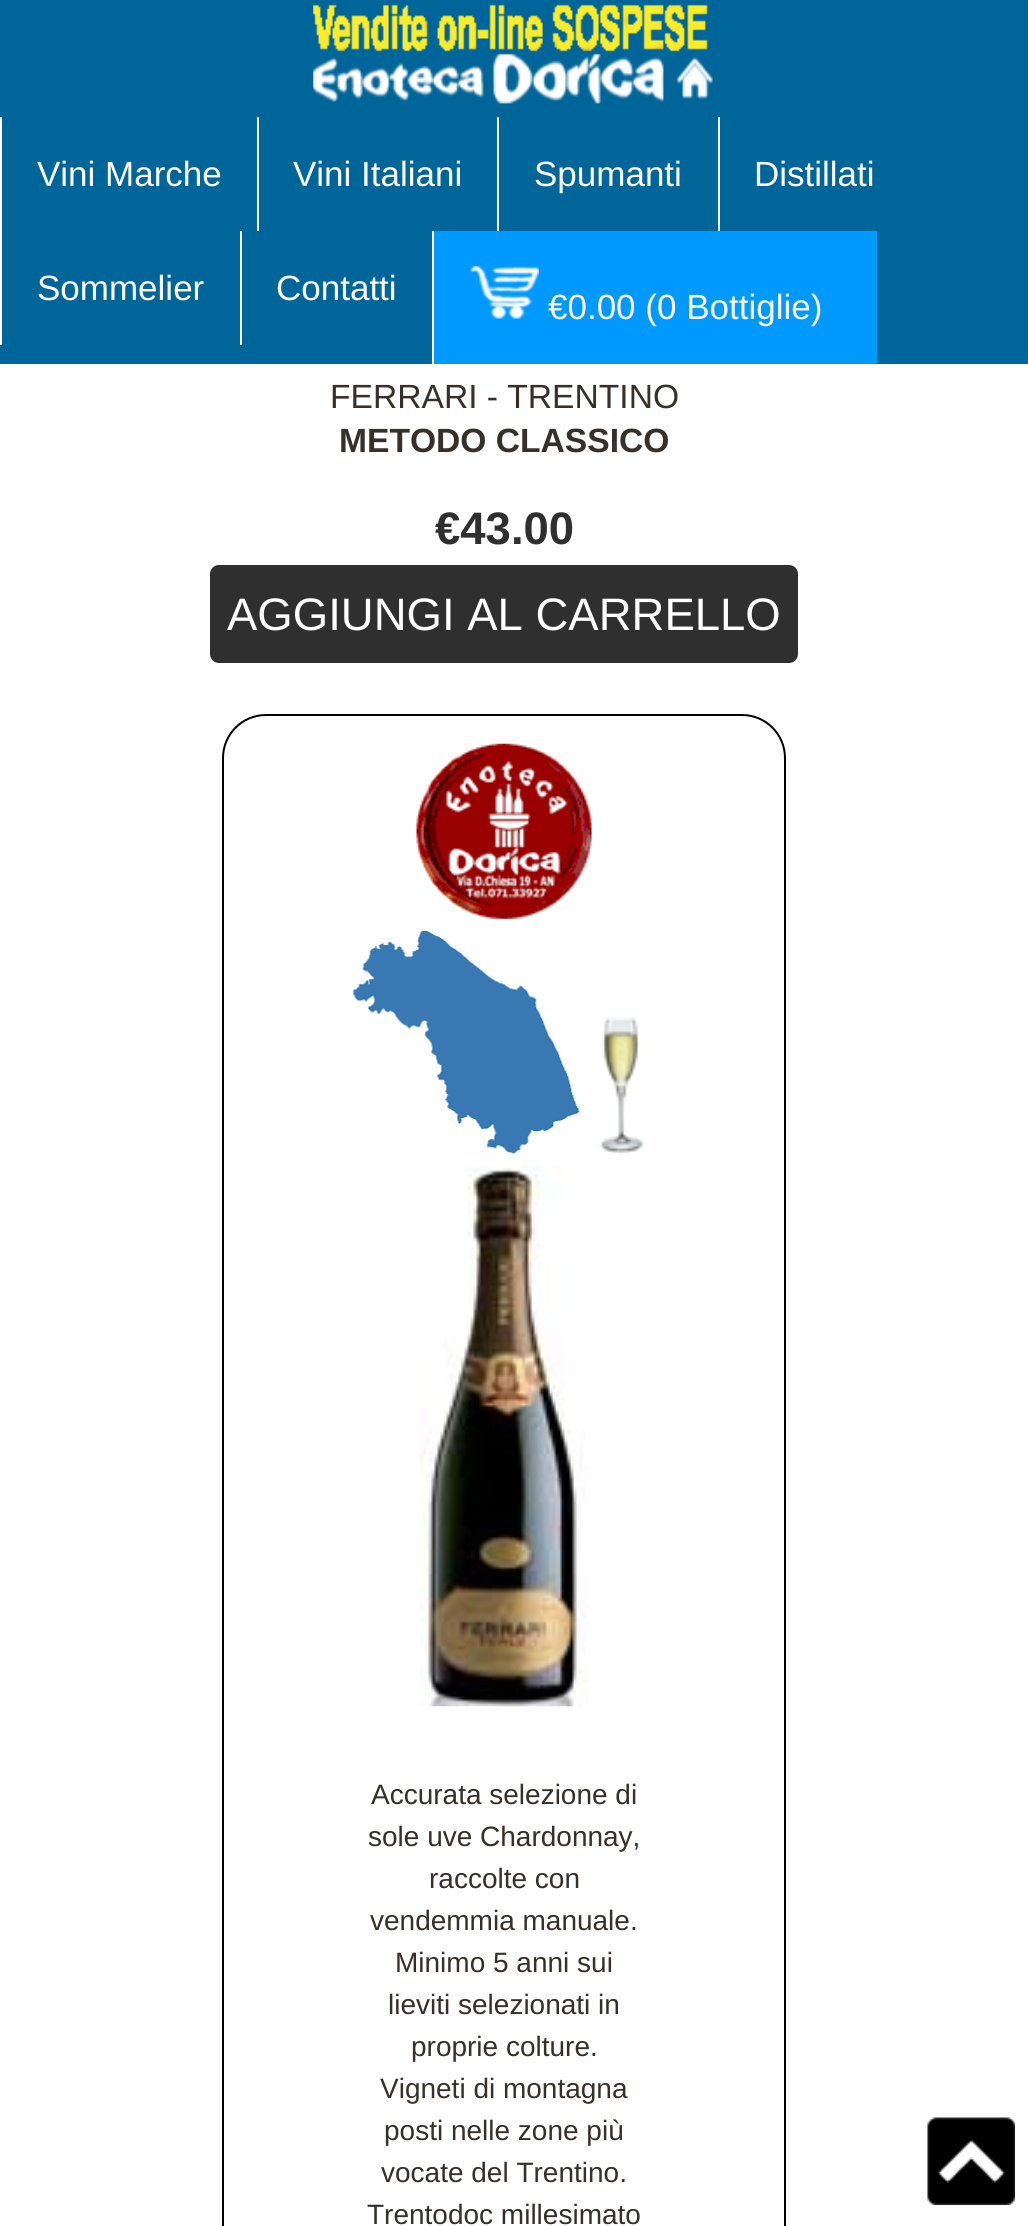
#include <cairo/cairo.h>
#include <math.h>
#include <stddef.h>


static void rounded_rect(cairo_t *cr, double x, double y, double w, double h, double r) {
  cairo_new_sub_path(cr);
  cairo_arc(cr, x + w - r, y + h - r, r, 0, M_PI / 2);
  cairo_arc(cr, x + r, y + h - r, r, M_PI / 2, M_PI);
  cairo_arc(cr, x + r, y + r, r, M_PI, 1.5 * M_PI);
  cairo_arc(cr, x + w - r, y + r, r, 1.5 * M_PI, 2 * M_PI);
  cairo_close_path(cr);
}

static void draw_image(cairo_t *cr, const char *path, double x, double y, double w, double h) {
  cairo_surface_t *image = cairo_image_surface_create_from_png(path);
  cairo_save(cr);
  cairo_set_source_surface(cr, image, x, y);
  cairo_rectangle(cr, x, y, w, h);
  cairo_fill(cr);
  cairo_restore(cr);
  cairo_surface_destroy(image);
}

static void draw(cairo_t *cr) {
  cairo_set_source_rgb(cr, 1, 1, 1);
  cairo_paint(cr);
  cairo_set_source_rgb(cr, 0, 102 / 255.0, 153 / 255.0);
  cairo_rectangle(cr, 0, 0, 1028, 364);
  cairo_fill(cr);
  draw_image(cr, "images/1.png", 313, 4, 400, 100);
  cairo_set_source_rgb(cr, 1, 1, 1);
  cairo_rectangle(cr, 0, 117, 2, 228);
  cairo_fill(cr);
  cairo_rectangle(cr, 257, 117, 2, 114);
  cairo_fill(cr);
  cairo_rectangle(cr, 497, 117, 2, 114);
  cairo_fill(cr);
  cairo_rectangle(cr, 718, 117, 2, 114);
  cairo_fill(cr);
  cairo_rectangle(cr, 240, 231, 2, 114);
  cairo_fill(cr);
  cairo_set_source_rgb(cr, 0, 153 / 255.0, 1);
  cairo_rectangle(cr, 434, 231, 443, 133);
  cairo_fill(cr);
  cairo_set_source_rgb(cr, 1, 1, 1);
  cairo_rectangle(cr, 432, 231, 2, 133);
  cairo_fill(cr);
  draw_image(cr, "images/2.png", 470, 266, 69, 53);
  cairo_set_source_rgb(cr, 47 / 255.0, 47 / 255.0, 47 / 255.0);
  rounded_rect(cr, 210, 565, 588, 98, 9);
  cairo_fill(cr);
  rounded_rect(cr, 223, 715, 562, 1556, 43);
  cairo_set_source_rgb(cr, 0, 0, 0);
  cairo_stroke(cr);
  draw_image(cr, "images/3.png", 416, 743, 176, 176);
  draw_image(cr, "images/4.png", 353, 931, 227, 223);
  draw_image(cr, "images/5.png", 599, 1017, 46, 137);
  draw_image(cr, "images/6.png", 420, 1165, 168, 542);
  draw_image(cr, "images/7.png", 927, 2117, 88, 88);
  cairo_select_font_face(cr, "Liberation Sans", CAIRO_FONT_SLANT_NORMAL, CAIRO_FONT_WEIGHT_NORMAL);
  cairo_set_font_size(cr, 35);
  cairo_set_source_rgb(cr, 1, 1, 1);
  cairo_move_to(cr, 37, 186);
  cairo_show_text(cr, "Vini Marche");
  cairo_move_to(cr, 293, 186);
  cairo_show_text(cr, "Vini Italiani");
  cairo_move_to(cr, 534, 186);
  cairo_show_text(cr, "Spumanti");
  cairo_move_to(cr, 754, 186);
  cairo_show_text(cr, "Distillati");
  cairo_move_to(cr, 37, 300);
  cairo_show_text(cr, "Sommelier");
  cairo_move_to(cr, 276, 300);
  cairo_show_text(cr, "Contatti");
  cairo_move_to(cr, 548, 319);
  cairo_show_text(cr, "€0.00 (0 Bottiglie)");
  cairo_set_font_size(cr, 33.6);
  cairo_set_source_rgb(cr, 55 / 255.0, 48 / 255.0, 42 / 255.0);
  cairo_move_to(cr, 330, 408);
  cairo_show_text(cr, "FERRARI - TRENTINO");
  cairo_select_font_face(cr, "Liberation Sans", CAIRO_FONT_SLANT_NORMAL, CAIRO_FONT_WEIGHT_BOLD);
  cairo_move_to(cr, 339, 452);
  cairo_show_text(cr, "METODO CLASSICO");
  cairo_set_font_size(cr, 45.5);
  cairo_set_source_rgb(cr, 47 / 255.0, 47 / 255.0, 47 / 255.0);
  cairo_move_to(cr, 435, 544);
  cairo_show_text(cr, "€43.00");
  cairo_select_font_face(cr, "Liberation Sans", CAIRO_FONT_SLANT_NORMAL, CAIRO_FONT_WEIGHT_NORMAL);
  cairo_set_source_rgb(cr, 1, 1, 1);
  cairo_move_to(cr, 227, 630);
  cairo_show_text(cr, "AGGIUNGI AL CARRELLO");
  cairo_set_font_size(cr, 28);
  cairo_set_source_rgb(cr, 55 / 255.0, 48 / 255.0, 42 / 255.0);
  cairo_move_to(cr, 371, 1804);
  cairo_show_text(cr, "Accurata selezione di");
  cairo_move_to(cr, 368, 1846);
  cairo_show_text(cr, "sole uve Chardonnay,");
  cairo_move_to(cr, 429, 1888);
  cairo_show_text(cr, "raccolte con");
  cairo_move_to(cr, 370, 1930);
  cairo_show_text(cr, "vendemmia manuale.");
  cairo_move_to(cr, 395, 1972);
  cairo_show_text(cr, "Minimo 5 anni sui");
  cairo_move_to(cr, 388, 2014);
  cairo_show_text(cr, "lieviti selezionati in");
  cairo_move_to(cr, 411, 2056);
  cairo_show_text(cr, "proprie colture.");
  cairo_move_to(cr, 380, 2098);
  cairo_show_text(cr, "Vigneti di montagna");
  cairo_move_to(cr, 384, 2140);
  cairo_show_text(cr, "posti nelle zone più");
  cairo_move_to(cr, 381, 2182);
  cairo_show_text(cr, "vocate del Trentino.");
  cairo_move_to(cr, 367, 2224);
  cairo_show_text(cr, "Trentodoc millesimato");
}

int main(void) {
  cairo_surface_t *surface = cairo_image_surface_create(CAIRO_FORMAT_RGB24, 1028, 2226);
  cairo_t *cr = cairo_create(surface);
  cairo_font_options_t *options = cairo_font_options_create();
  cairo_font_options_set_hint_metrics(options, CAIRO_HINT_METRICS_OFF);
  cairo_font_options_set_hint_style(options, CAIRO_HINT_STYLE_NONE);
  cairo_set_font_options(cr, options);
  cairo_set_miter_limit(cr, 4);
  draw(cr);
  cairo_surface_write_to_png(surface, "out.png");
  cairo_font_options_destroy(options);
  cairo_destroy(cr);
  cairo_surface_destroy(surface);
  return 0;
}
